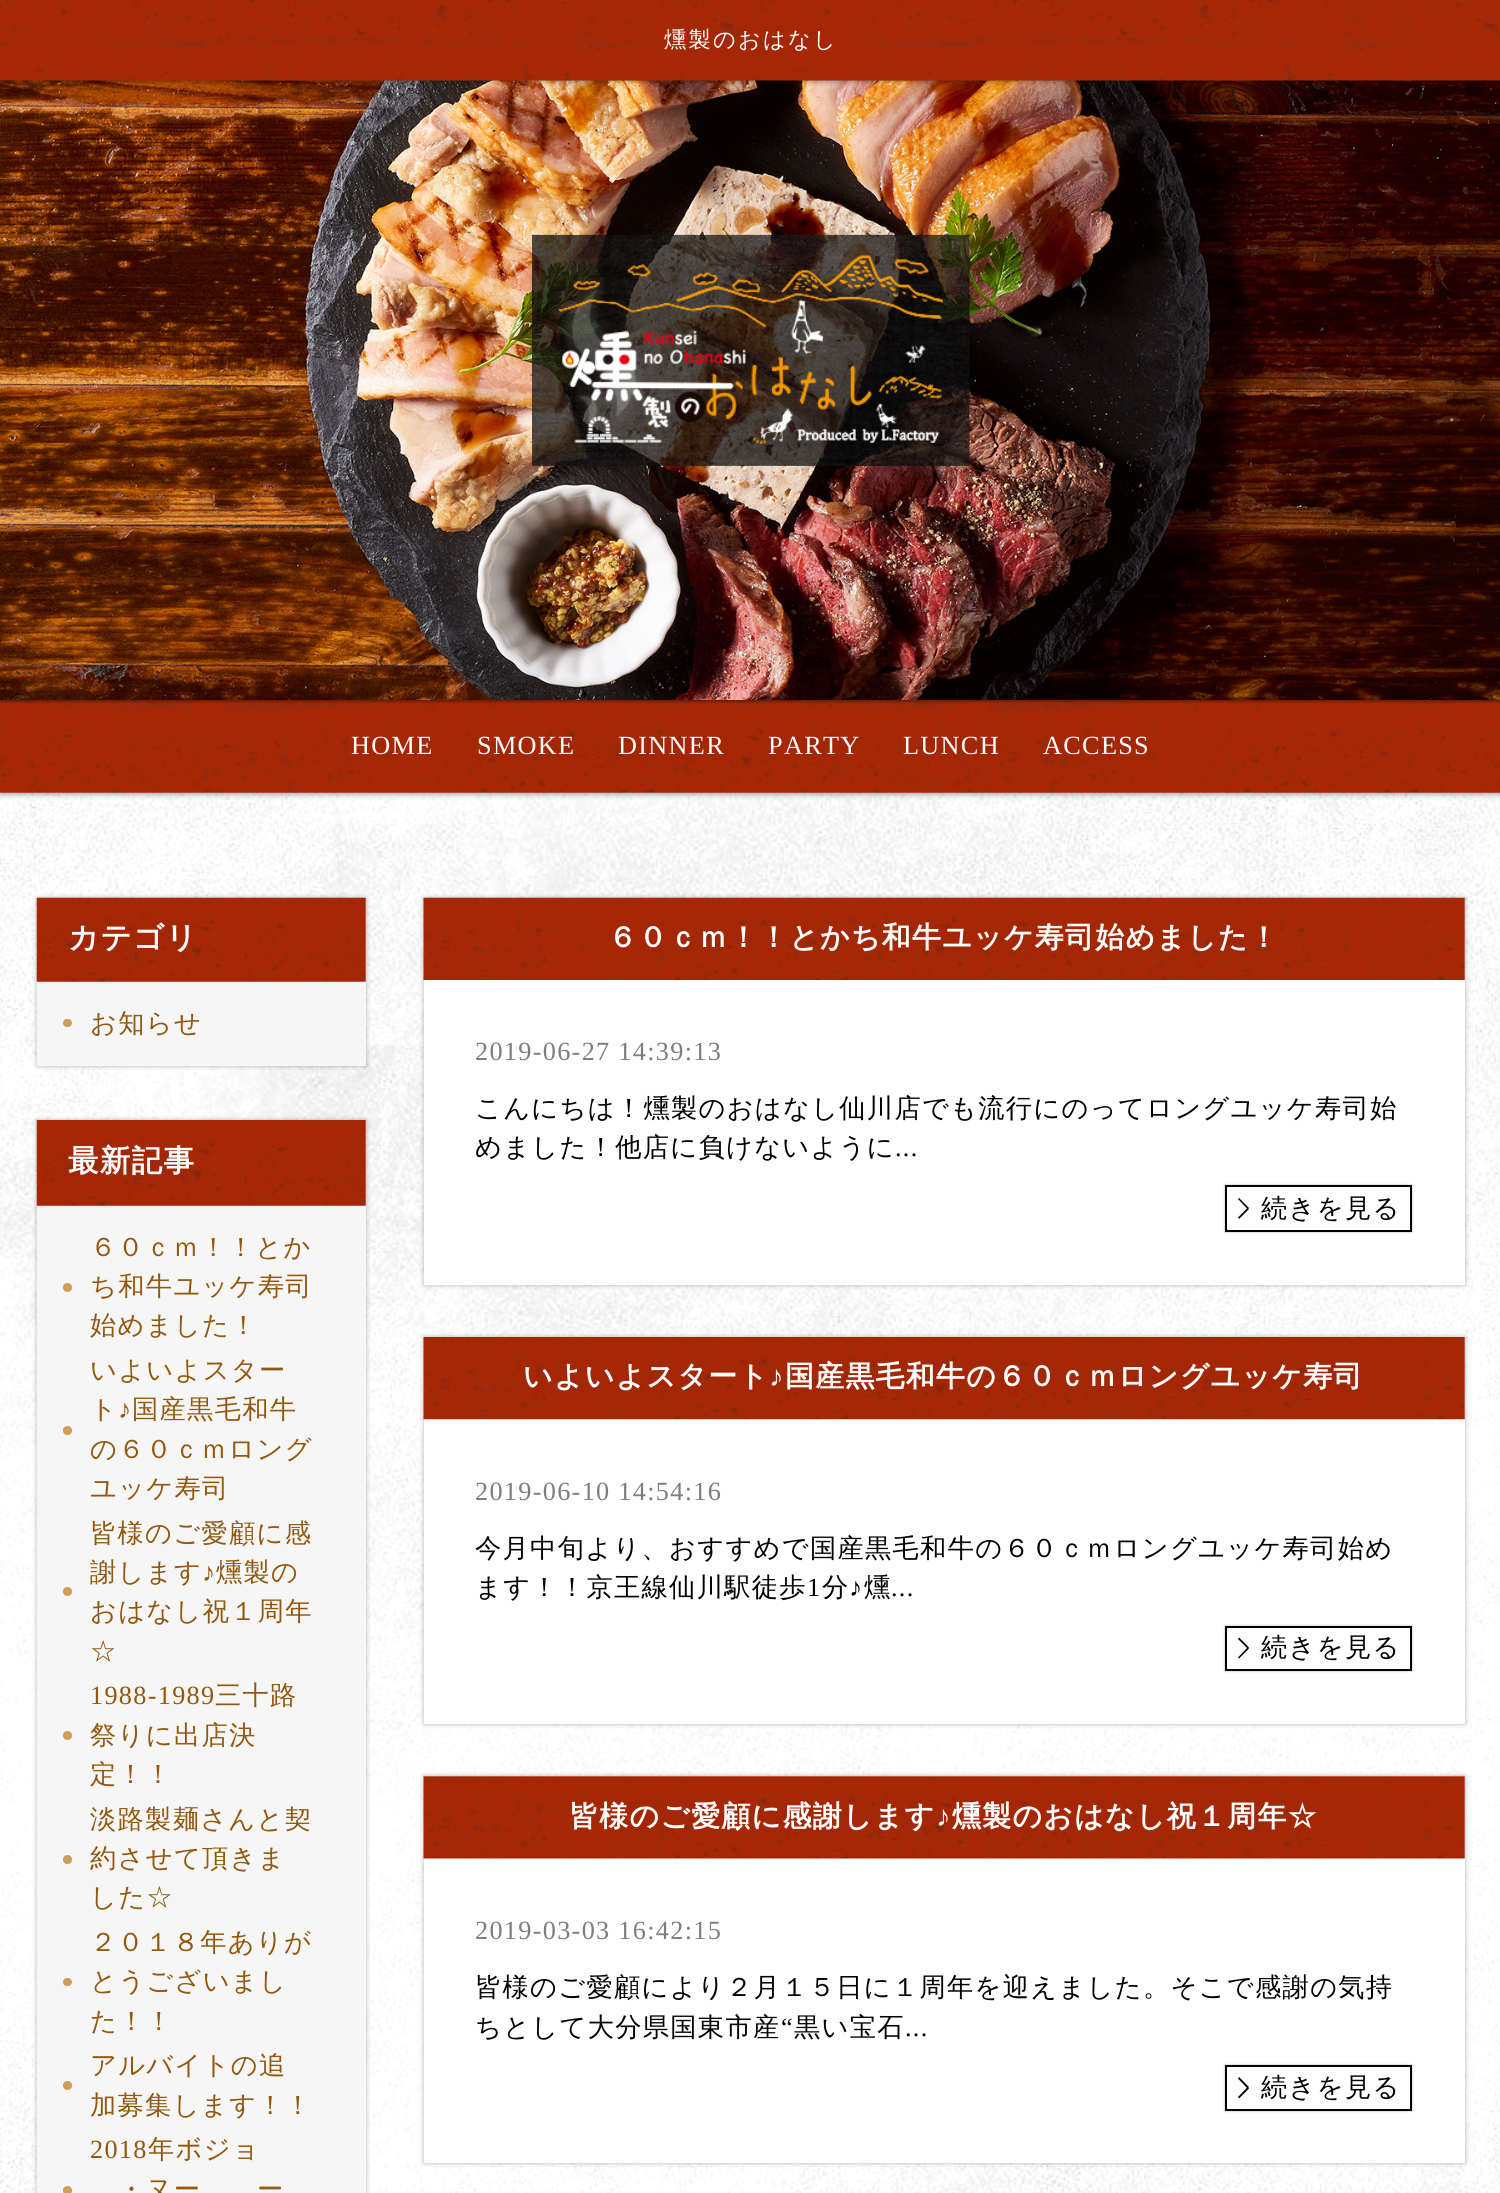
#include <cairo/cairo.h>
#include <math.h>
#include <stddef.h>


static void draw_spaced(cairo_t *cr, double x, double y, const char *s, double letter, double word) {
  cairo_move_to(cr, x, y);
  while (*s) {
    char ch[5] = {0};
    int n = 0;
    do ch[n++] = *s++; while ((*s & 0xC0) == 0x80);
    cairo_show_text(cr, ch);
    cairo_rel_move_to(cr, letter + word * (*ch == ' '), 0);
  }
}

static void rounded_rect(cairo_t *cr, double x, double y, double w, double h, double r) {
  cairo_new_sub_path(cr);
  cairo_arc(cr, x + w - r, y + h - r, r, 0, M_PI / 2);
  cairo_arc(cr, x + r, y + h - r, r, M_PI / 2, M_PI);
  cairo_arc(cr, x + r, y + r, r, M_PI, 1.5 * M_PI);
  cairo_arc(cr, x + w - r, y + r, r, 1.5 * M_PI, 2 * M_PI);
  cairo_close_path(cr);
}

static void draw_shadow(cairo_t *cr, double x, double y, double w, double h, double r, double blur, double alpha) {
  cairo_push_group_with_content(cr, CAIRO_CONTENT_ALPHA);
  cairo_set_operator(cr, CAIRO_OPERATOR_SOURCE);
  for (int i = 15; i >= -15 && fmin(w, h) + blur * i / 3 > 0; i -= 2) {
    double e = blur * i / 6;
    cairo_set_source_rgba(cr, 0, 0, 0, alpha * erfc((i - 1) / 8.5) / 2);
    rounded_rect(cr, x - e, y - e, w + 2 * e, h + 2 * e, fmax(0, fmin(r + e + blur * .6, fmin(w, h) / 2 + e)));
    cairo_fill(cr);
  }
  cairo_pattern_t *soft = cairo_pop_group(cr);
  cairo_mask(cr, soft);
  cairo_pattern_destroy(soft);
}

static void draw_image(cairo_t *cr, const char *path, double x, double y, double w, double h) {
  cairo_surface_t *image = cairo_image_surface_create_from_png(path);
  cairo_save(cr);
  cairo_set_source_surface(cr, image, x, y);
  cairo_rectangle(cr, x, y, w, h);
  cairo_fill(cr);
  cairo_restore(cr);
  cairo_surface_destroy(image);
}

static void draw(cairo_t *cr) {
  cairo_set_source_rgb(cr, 1, 1, 1);
  cairo_paint(cr);
  draw_image(cr, "images/1.png", 0, 792, 1500, 1401);
  cairo_set_source_rgb(cr, 0, 0, 0);
  draw_shadow(cr, 0, 702, 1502, 93, 0, 2.5, 0.3);
  draw_image(cr, "images/5.png", 0, 700, 1500, 93);
  draw_shadow(cr, 0, 2, 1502, 700, 0, 1, 0.3);
  draw_image(cr, "images/2.png", 0, 80, 1500, 620);
  draw_shadow(cr, 0, 2, 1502, 80, 0, 2.5, 0.3);
  draw_image(cr, "images/3.png", 0, 0, 1500, 81);
  draw_image(cr, "images/4.png", 532, 234, 438, 232);
  draw_shadow(cr, 37, 898, 329, 168, 0, 2.5, 0.3);
  cairo_set_source_rgb(cr, 246 / 255.0, 246 / 255.0, 246 / 255.0);
  cairo_rectangle(cr, 37, 898, 329, 168);
  cairo_fill(cr);
  draw_image(cr, "images/6.png", 36, 897, 330, 85);
  cairo_set_source_rgb(cr, 204 / 255.0, 158 / 255.0, 90 / 255.0);
  rounded_rect(cr, 63, 1019, 9, 8, 4);
  cairo_fill(cr);
  cairo_set_source_rgb(cr, 0, 0, 0);
  draw_shadow(cr, 37, 1120, 329, 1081, 0, 2.5, 0.3);
  cairo_set_source_rgb(cr, 246 / 255.0, 246 / 255.0, 246 / 255.0);
  cairo_rectangle(cr, 37, 1120, 329, 1073);
  cairo_fill(cr);
  draw_image(cr, "images/7.png", 36, 1120, 330, 86);
  cairo_set_source_rgb(cr, 204 / 255.0, 158 / 255.0, 90 / 255.0);
  cairo_arc(cr, 67.5, 1287.5, 4.5, 0, 2 * M_PI);
  cairo_fill(cr);
  cairo_arc(cr, 67.5, 1430.5, 4.5, 0, 2 * M_PI);
  cairo_fill(cr);
  cairo_arc(cr, 67.5, 1591.5, 4.5, 0, 2 * M_PI);
  cairo_fill(cr);
  cairo_arc(cr, 67.5, 1735.5, 4.5, 0, 2 * M_PI);
  cairo_fill(cr);
  cairo_arc(cr, 67.5, 1859.5, 4.5, 0, 2 * M_PI);
  cairo_fill(cr);
  rounded_rect(cr, 63, 1978, 9, 8, 4);
  cairo_fill(cr);
  cairo_arc(cr, 67.5, 2085.5, 4.5, 0, 2 * M_PI);
  cairo_fill(cr);
  cairo_arc(cr, 67.5, 2190.5, 4.5, 0, 2 * M_PI);
  cairo_fill(cr);
  cairo_set_source_rgb(cr, 0, 0, 0);
  draw_shadow(cr, 424, 898, 1041, 387, 0, 2.5, 0.3);
  cairo_set_source_rgb(cr, 254 / 255.0, 254 / 255.0, 254 / 255.0);
  cairo_rectangle(cr, 424, 898, 1041, 387);
  cairo_fill(cr);
  draw_image(cr, "images/8.png", 423, 897, 1042, 83);
  cairo_save(cr);
  cairo_set_fill_rule(cr, CAIRO_FILL_RULE_EVEN_ODD);
  cairo_new_path(cr);
  cairo_move_to(cr, 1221, 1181);
  cairo_line_to(cr, 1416, 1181);
  cairo_line_to(cr, 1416, 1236);
  cairo_line_to(cr, 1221, 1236);
  cairo_close_path(cr);
  cairo_move_to(cr, 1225, 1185);
  cairo_line_to(cr, 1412, 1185);
  cairo_line_to(cr, 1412, 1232);
  cairo_line_to(cr, 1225, 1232);
  cairo_close_path(cr);
  cairo_clip(cr);
  cairo_set_source_rgb(cr, 0, 0, 0);
  draw_shadow(cr, 1225, 1185, 187, 47, 0, 1, 0.3);
  cairo_restore(cr);
  cairo_rectangle(cr, 1226, 1186, 185, 45);
  cairo_set_source_rgb(cr, 1 / 255.0, 1 / 255.0, 1 / 255.0);
  cairo_stroke(cr);
  cairo_new_path(cr);
  cairo_move_to(cr, 1239, 1198);
  cairo_line_to(cr, 1249, 1208);
  cairo_line_to(cr, 1247.5, 1209);
  cairo_line_to(cr, 1238, 1199);
  cairo_close_path(cr);
  cairo_fill(cr);
  cairo_new_path(cr);
  cairo_move_to(cr, 1238, 1217.5);
  cairo_line_to(cr, 1247.5, 1208);
  cairo_line_to(cr, 1249, 1209);
  cairo_line_to(cr, 1239, 1219);
  cairo_close_path(cr);
  cairo_fill(cr);
  cairo_set_source_rgb(cr, 0, 0, 0);
  draw_shadow(cr, 424, 1337, 1041, 387, 0, 2.5, 0.3);
  cairo_set_source_rgb(cr, 254 / 255.0, 254 / 255.0, 254 / 255.0);
  cairo_rectangle(cr, 424, 1337, 1041, 387);
  cairo_fill(cr);
  draw_image(cr, "images/9.png", 423, 1337, 1042, 83);
  cairo_save(cr);
  cairo_set_fill_rule(cr, CAIRO_FILL_RULE_EVEN_ODD);
  cairo_new_path(cr);
  cairo_move_to(cr, 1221, 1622);
  cairo_line_to(cr, 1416, 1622);
  cairo_line_to(cr, 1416, 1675);
  cairo_line_to(cr, 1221, 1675);
  cairo_close_path(cr);
  cairo_move_to(cr, 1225, 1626);
  cairo_line_to(cr, 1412, 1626);
  cairo_line_to(cr, 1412, 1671);
  cairo_line_to(cr, 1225, 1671);
  cairo_close_path(cr);
  cairo_clip(cr);
  cairo_set_source_rgb(cr, 0, 0, 0);
  draw_shadow(cr, 1225, 1626, 187, 45, 0, 1, 0.3);
  cairo_restore(cr);
  cairo_rectangle(cr, 1226, 1627, 185, 43);
  cairo_set_source_rgb(cr, 1 / 255.0, 1 / 255.0, 1 / 255.0);
  cairo_stroke(cr);
  cairo_new_path(cr);
  cairo_move_to(cr, 1239, 1637.5);
  cairo_line_to(cr, 1249, 1647.5);
  cairo_line_to(cr, 1247.5, 1648.5);
  cairo_line_to(cr, 1238, 1639);
  cairo_close_path(cr);
  cairo_fill(cr);
  cairo_new_path(cr);
  cairo_move_to(cr, 1238, 1657.5);
  cairo_line_to(cr, 1247.5, 1647.5);
  cairo_line_to(cr, 1249, 1648.5);
  cairo_line_to(cr, 1239, 1658.5);
  cairo_close_path(cr);
  cairo_fill(cr);
  cairo_set_source_rgb(cr, 0, 0, 0);
  draw_shadow(cr, 424, 1776, 1041, 387, 0, 2.5, 0.3);
  cairo_set_source_rgb(cr, 254 / 255.0, 254 / 255.0, 254 / 255.0);
  cairo_rectangle(cr, 424, 1776, 1041, 387);
  cairo_fill(cr);
  draw_image(cr, "images/10.png", 423, 1776, 1042, 83);
  cairo_save(cr);
  cairo_set_fill_rule(cr, CAIRO_FILL_RULE_EVEN_ODD);
  cairo_new_path(cr);
  cairo_move_to(cr, 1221, 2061);
  cairo_line_to(cr, 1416, 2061);
  cairo_line_to(cr, 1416, 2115);
  cairo_line_to(cr, 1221, 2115);
  cairo_close_path(cr);
  cairo_move_to(cr, 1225, 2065);
  cairo_line_to(cr, 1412, 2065);
  cairo_line_to(cr, 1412, 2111);
  cairo_line_to(cr, 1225, 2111);
  cairo_close_path(cr);
  cairo_clip(cr);
  cairo_set_source_rgb(cr, 0, 0, 0);
  draw_shadow(cr, 1225, 2065, 187, 46, 0, 1, 0.3);
  cairo_restore(cr);
  cairo_rectangle(cr, 1226, 2066, 185, 44);
  cairo_set_source_rgb(cr, 1 / 255.0, 1 / 255.0, 1 / 255.0);
  cairo_stroke(cr);
  cairo_new_path(cr);
  cairo_move_to(cr, 1239, 2077);
  cairo_line_to(cr, 1249, 2087);
  cairo_line_to(cr, 1247.5, 2088.5);
  cairo_line_to(cr, 1238, 2078.5);
  cairo_close_path(cr);
  cairo_fill(cr);
  cairo_new_path(cr);
  cairo_move_to(cr, 1238, 2097);
  cairo_line_to(cr, 1247.5, 2087);
  cairo_line_to(cr, 1249, 2088.5);
  cairo_line_to(cr, 1239, 2098.5);
  cairo_close_path(cr);
  cairo_fill(cr);
  cairo_select_font_face(cr, "WenQuanYi Zen Hei Medium", CAIRO_FONT_SLANT_NORMAL, CAIRO_FONT_WEIGHT_NORMAL);
  cairo_set_font_size(cr, 22.25);
  cairo_set_source_rgb(cr, 254 / 255.0, 254 / 255.0, 254 / 255.0);
  draw_spaced(cr, 664, 47, "燻製のおはなし", 2.25, 0);
  cairo_select_font_face(cr, "Liberation Serif", CAIRO_FONT_SLANT_NORMAL, CAIRO_FONT_WEIGHT_NORMAL);
  cairo_set_font_size(cr, 26.25);
  draw_spaced(cr, 351, 754, "HOME", 1.3, 0);
  draw_spaced(cr, 477, 754, "SMOKE", 1.3, 0);
  draw_spaced(cr, 618, 754, "DINNER", 1.3, 0);
  draw_spaced(cr, 768, 754, "PARTY", 1.3, 0);
  draw_spaced(cr, 903, 754, "LUNCH", 1.3, 0);
  draw_spaced(cr, 1043, 754, "ACCESS", 1.3, 0);
  cairo_select_font_face(cr, "WenQuanYi Zen Hei", CAIRO_FONT_SLANT_NORMAL, CAIRO_FONT_WEIGHT_BOLD);
  cairo_set_font_size(cr, 30.5);
  draw_spaced(cr, 68, 948, "カテゴリ", 1.3, 0);
  cairo_select_font_face(cr, "WenQuanYi Zen Hei Medium", CAIRO_FONT_SLANT_NORMAL, CAIRO_FONT_WEIGHT_NORMAL);
  cairo_set_font_size(cr, 26.25);
  cairo_set_source_rgb(cr, 146 / 255.0, 88 / 255.0, 13 / 255.0);
  draw_spaced(cr, 90, 1032, "お知らせ", 1.3, 0);
  cairo_select_font_face(cr, "WenQuanYi Zen Hei", CAIRO_FONT_SLANT_NORMAL, CAIRO_FONT_WEIGHT_BOLD);
  cairo_set_font_size(cr, 30.5);
  cairo_set_source_rgb(cr, 254 / 255.0, 254 / 255.0, 254 / 255.0);
  draw_spaced(cr, 68, 1171, "最新記事", 1.3, 0);
  cairo_select_font_face(cr, "WenQuanYi Zen Hei Medium", CAIRO_FONT_SLANT_NORMAL, CAIRO_FONT_WEIGHT_NORMAL);
  cairo_set_font_size(cr, 26.25);
  cairo_set_source_rgb(cr, 146 / 255.0, 88 / 255.0, 13 / 255.0);
  draw_spaced(cr, 90, 1256, "６０ｃｍ！！とか", 1.3, 0);
  draw_spaced(cr, 90, 1295, "ち和牛ユッケ寿司", 1.3, 0);
  draw_spaced(cr, 90, 1334, "始めました！", 1.3, 0);
  draw_spaced(cr, 90, 1379, "いよいよスター", 1.3, 0);
  draw_spaced(cr, 90, 1418, "ト", 1.3, 0);
  cairo_select_font_face(cr, "Liberation Serif", CAIRO_FONT_SLANT_NORMAL, CAIRO_FONT_WEIGHT_NORMAL);
  draw_spaced(cr, 118, 1418, "♪", 1.3, 0);
  cairo_select_font_face(cr, "WenQuanYi Zen Hei Medium", CAIRO_FONT_SLANT_NORMAL, CAIRO_FONT_WEIGHT_NORMAL);
  draw_spaced(cr, 132, 1418, "国産黒毛和牛", 1.3, 0);
  draw_spaced(cr, 90, 1458, "の６０ｃｍロング", 1.3, 0);
  draw_spaced(cr, 90, 1497, "ユッケ寿司", 1.3, 0);
  draw_spaced(cr, 90, 1542, "皆様のご愛顧に感", 1.3, 0);
  draw_spaced(cr, 90, 1581, "謝します", 1.3, 0);
  cairo_select_font_face(cr, "Liberation Serif", CAIRO_FONT_SLANT_NORMAL, CAIRO_FONT_WEIGHT_NORMAL);
  draw_spaced(cr, 202, 1581, "♪", 1.3, 0);
  cairo_select_font_face(cr, "WenQuanYi Zen Hei Medium", CAIRO_FONT_SLANT_NORMAL, CAIRO_FONT_WEIGHT_NORMAL);
  draw_spaced(cr, 216, 1581, "燻製の", 1.3, 0);
  draw_spaced(cr, 90, 1620, "おはなし祝１周年", 1.3, 0);
  draw_spaced(cr, 90, 1660, "☆", 1.3, 0);
  cairo_select_font_face(cr, "Liberation Serif", CAIRO_FONT_SLANT_NORMAL, CAIRO_FONT_WEIGHT_NORMAL);
  draw_spaced(cr, 90, 1704, "1988-1989", 1.3, 0);
  cairo_select_font_face(cr, "WenQuanYi Zen Hei Medium", CAIRO_FONT_SLANT_NORMAL, CAIRO_FONT_WEIGHT_NORMAL);
  draw_spaced(cr, 215, 1704, "三十路", 1.3, 0);
  draw_spaced(cr, 90, 1744, "祭りに出店決", 1.3, 0);
  draw_spaced(cr, 90, 1783, "定！！", 1.3, 0);
  draw_spaced(cr, 90, 1828, "淡路製麺さんと契", 1.3, 0);
  draw_spaced(cr, 90, 1867, "約させて頂きま", 1.3, 0);
  draw_spaced(cr, 90, 1906, "した☆", 1.3, 0);
  draw_spaced(cr, 90, 1951, "２０１８年ありが", 1.3, 0);
  draw_spaced(cr, 90, 1990, "とうございまし", 1.3, 0);
  draw_spaced(cr, 90, 2030, "た！！", 1.3, 0);
  draw_spaced(cr, 90, 2074, "アルバイトの追", 1.3, 0);
  draw_spaced(cr, 90, 2114, "加募集します！！", 1.3, 0);
  cairo_select_font_face(cr, "Liberation Serif", CAIRO_FONT_SLANT_NORMAL, CAIRO_FONT_WEIGHT_NORMAL);
  draw_spaced(cr, 90, 2158, "2018", 1.3, 0);
  cairo_select_font_face(cr, "WenQuanYi Zen Hei Medium", CAIRO_FONT_SLANT_NORMAL, CAIRO_FONT_WEIGHT_NORMAL);
  draw_spaced(cr, 148, 2158, "年ボジョ", 1.3, 0);
  draw_spaced(cr, 118, 2198, "・ヌー", 1.3, 0);
  draw_spaced(cr, 257, 2198, "ー", 1.3, 0);
  cairo_select_font_face(cr, "WenQuanYi Zen Hei", CAIRO_FONT_SLANT_NORMAL, CAIRO_FONT_WEIGHT_BOLD);
  cairo_set_font_size(cr, 28.9);
  cairo_set_source_rgb(cr, 254 / 255.0, 254 / 255.0, 254 / 255.0);
  draw_spaced(cr, 608, 947, "６０ｃｍ！！とかち和牛ユッケ寿司始めました！", 1.3, 0);
  cairo_select_font_face(cr, "Liberation Serif", CAIRO_FONT_SLANT_NORMAL, CAIRO_FONT_WEIGHT_NORMAL);
  cairo_set_font_size(cr, 26.25);
  cairo_set_source_rgb(cr, 126 / 255.0, 126 / 255.0, 126 / 255.0);
  draw_spaced(cr, 475, 1060, "2019-06-27 14:39:13", 1.3, 0);
  cairo_select_font_face(cr, "WenQuanYi Zen Hei Medium", CAIRO_FONT_SLANT_NORMAL, CAIRO_FONT_WEIGHT_NORMAL);
  cairo_set_source_rgb(cr, 1 / 255.0, 1 / 255.0, 1 / 255.0);
  draw_spaced(cr, 475, 1117, "こんにちは！燻製のおはなし仙川店でも流行にのってロングユッケ寿司始", 1.3, 0);
  draw_spaced(cr, 475, 1156, "めました！他店に負けないように", 1.3, 0);
  cairo_select_font_face(cr, "Liberation Serif", CAIRO_FONT_SLANT_NORMAL, CAIRO_FONT_WEIGHT_NORMAL);
  draw_spaced(cr, 895, 1156, "...", 1.3, 0);
  cairo_select_font_face(cr, "WenQuanYi Zen Hei Medium", CAIRO_FONT_SLANT_NORMAL, CAIRO_FONT_WEIGHT_NORMAL);
  draw_spaced(cr, 1261, 1217, "続きを見る", 1.3, 0);
  cairo_select_font_face(cr, "WenQuanYi Zen Hei", CAIRO_FONT_SLANT_NORMAL, CAIRO_FONT_WEIGHT_BOLD);
  cairo_set_font_size(cr, 28.9);
  cairo_set_source_rgb(cr, 254 / 255.0, 254 / 255.0, 254 / 255.0);
  draw_spaced(cr, 523, 1386, "いよいよスタート", 1.3, 0);
  cairo_select_font_face(cr, "Liberation Serif", CAIRO_FONT_SLANT_NORMAL, CAIRO_FONT_WEIGHT_BOLD);
  draw_spaced(cr, 769, 1386, "♪", 1.3, 0);
  cairo_select_font_face(cr, "WenQuanYi Zen Hei", CAIRO_FONT_SLANT_NORMAL, CAIRO_FONT_WEIGHT_BOLD);
  draw_spaced(cr, 785, 1386, "国産黒毛和牛の６０ｃｍロングユッケ寿司", 1.3, 0);
  cairo_select_font_face(cr, "Liberation Serif", CAIRO_FONT_SLANT_NORMAL, CAIRO_FONT_WEIGHT_NORMAL);
  cairo_set_font_size(cr, 26.25);
  cairo_set_source_rgb(cr, 126 / 255.0, 126 / 255.0, 126 / 255.0);
  draw_spaced(cr, 475, 1500, "2019-06-10 14:54:16", 1.3, 0);
  cairo_select_font_face(cr, "WenQuanYi Zen Hei Medium", CAIRO_FONT_SLANT_NORMAL, CAIRO_FONT_WEIGHT_NORMAL);
  cairo_set_source_rgb(cr, 1 / 255.0, 1 / 255.0, 1 / 255.0);
  draw_spaced(cr, 475, 1557, "今月中旬より、おすすめで国産黒毛和牛の６０ｃｍロングユッケ寿司始め", 1.3, 0);
  draw_spaced(cr, 475, 1596, "ます！！京王線仙川駅徒歩", 1.3, 0);
  cairo_select_font_face(cr, "Liberation Serif", CAIRO_FONT_SLANT_NORMAL, CAIRO_FONT_WEIGHT_NORMAL);
  draw_spaced(cr, 807, 1596, "1", 1.3, 0);
  cairo_select_font_face(cr, "WenQuanYi Zen Hei Medium", CAIRO_FONT_SLANT_NORMAL, CAIRO_FONT_WEIGHT_NORMAL);
  draw_spaced(cr, 822, 1596, "分", 1.3, 0);
  cairo_select_font_face(cr, "Liberation Serif", CAIRO_FONT_SLANT_NORMAL, CAIRO_FONT_WEIGHT_NORMAL);
  draw_spaced(cr, 849, 1596, "♪", 1.3, 0);
  cairo_select_font_face(cr, "WenQuanYi Zen Hei Medium", CAIRO_FONT_SLANT_NORMAL, CAIRO_FONT_WEIGHT_NORMAL);
  draw_spaced(cr, 864, 1596, "燻", 1.3, 0);
  cairo_select_font_face(cr, "Liberation Serif", CAIRO_FONT_SLANT_NORMAL, CAIRO_FONT_WEIGHT_NORMAL);
  draw_spaced(cr, 891, 1596, "...", 1.3, 0);
  cairo_select_font_face(cr, "WenQuanYi Zen Hei Medium", CAIRO_FONT_SLANT_NORMAL, CAIRO_FONT_WEIGHT_NORMAL);
  draw_spaced(cr, 1261, 1656, "続きを見る", 1.3, 0);
  cairo_select_font_face(cr, "WenQuanYi Zen Hei", CAIRO_FONT_SLANT_NORMAL, CAIRO_FONT_WEIGHT_BOLD);
  cairo_set_font_size(cr, 28.9);
  cairo_set_source_rgb(cr, 254 / 255.0, 254 / 255.0, 254 / 255.0);
  draw_spaced(cr, 569, 1826, "皆様のご愛顧に感謝します", 1.3, 0);
  cairo_select_font_face(cr, "Liberation Serif", CAIRO_FONT_SLANT_NORMAL, CAIRO_FONT_WEIGHT_BOLD);
  draw_spaced(cr, 936, 1826, "♪", 1.3, 0);
  cairo_select_font_face(cr, "WenQuanYi Zen Hei", CAIRO_FONT_SLANT_NORMAL, CAIRO_FONT_WEIGHT_BOLD);
  draw_spaced(cr, 952, 1826, "燻製のおはなし祝１周年☆", 1.3, 0);
  cairo_select_font_face(cr, "Liberation Serif", CAIRO_FONT_SLANT_NORMAL, CAIRO_FONT_WEIGHT_NORMAL);
  cairo_set_font_size(cr, 26.25);
  cairo_set_source_rgb(cr, 126 / 255.0, 126 / 255.0, 126 / 255.0);
  draw_spaced(cr, 475, 1939, "2019-03-03 16:42:15", 1.3, 0);
  cairo_select_font_face(cr, "WenQuanYi Zen Hei Medium", CAIRO_FONT_SLANT_NORMAL, CAIRO_FONT_WEIGHT_NORMAL);
  cairo_set_source_rgb(cr, 1 / 255.0, 1 / 255.0, 1 / 255.0);
  draw_spaced(cr, 475, 1996, "皆様のご愛顧により２月１５日に１周年を迎えました。そこで感謝の気持", 1.3, 0);
  draw_spaced(cr, 475, 2036, "ちとして大分県国東市産", 1.3, 0);
  cairo_select_font_face(cr, "Liberation Serif", CAIRO_FONT_SLANT_NORMAL, CAIRO_FONT_WEIGHT_NORMAL);
  draw_spaced(cr, 781, 2036, "“", 1.3, 0);
  cairo_select_font_face(cr, "WenQuanYi Zen Hei Medium", CAIRO_FONT_SLANT_NORMAL, CAIRO_FONT_WEIGHT_NORMAL);
  draw_spaced(cr, 794, 2036, "黒い宝石", 1.3, 0);
  cairo_select_font_face(cr, "Liberation Serif", CAIRO_FONT_SLANT_NORMAL, CAIRO_FONT_WEIGHT_NORMAL);
  draw_spaced(cr, 905, 2036, "...", 1.3, 0);
  cairo_select_font_face(cr, "WenQuanYi Zen Hei Medium", CAIRO_FONT_SLANT_NORMAL, CAIRO_FONT_WEIGHT_NORMAL);
  draw_spaced(cr, 1261, 2096, "続きを見る", 1.3, 0);
}

int main(void) {
  cairo_surface_t *surface = cairo_image_surface_create(CAIRO_FORMAT_RGB24, 1500, 2193);
  cairo_t *cr = cairo_create(surface);
  cairo_font_options_t *options = cairo_font_options_create();
  cairo_font_options_set_hint_metrics(options, CAIRO_HINT_METRICS_OFF);
  cairo_font_options_set_hint_style(options, CAIRO_HINT_STYLE_NONE);
  cairo_set_font_options(cr, options);
  cairo_set_miter_limit(cr, 4);
  draw(cr);
  cairo_surface_write_to_png(surface, "out.png");
  cairo_font_options_destroy(options);
  cairo_destroy(cr);
  cairo_surface_destroy(surface);
  return 0;
}
